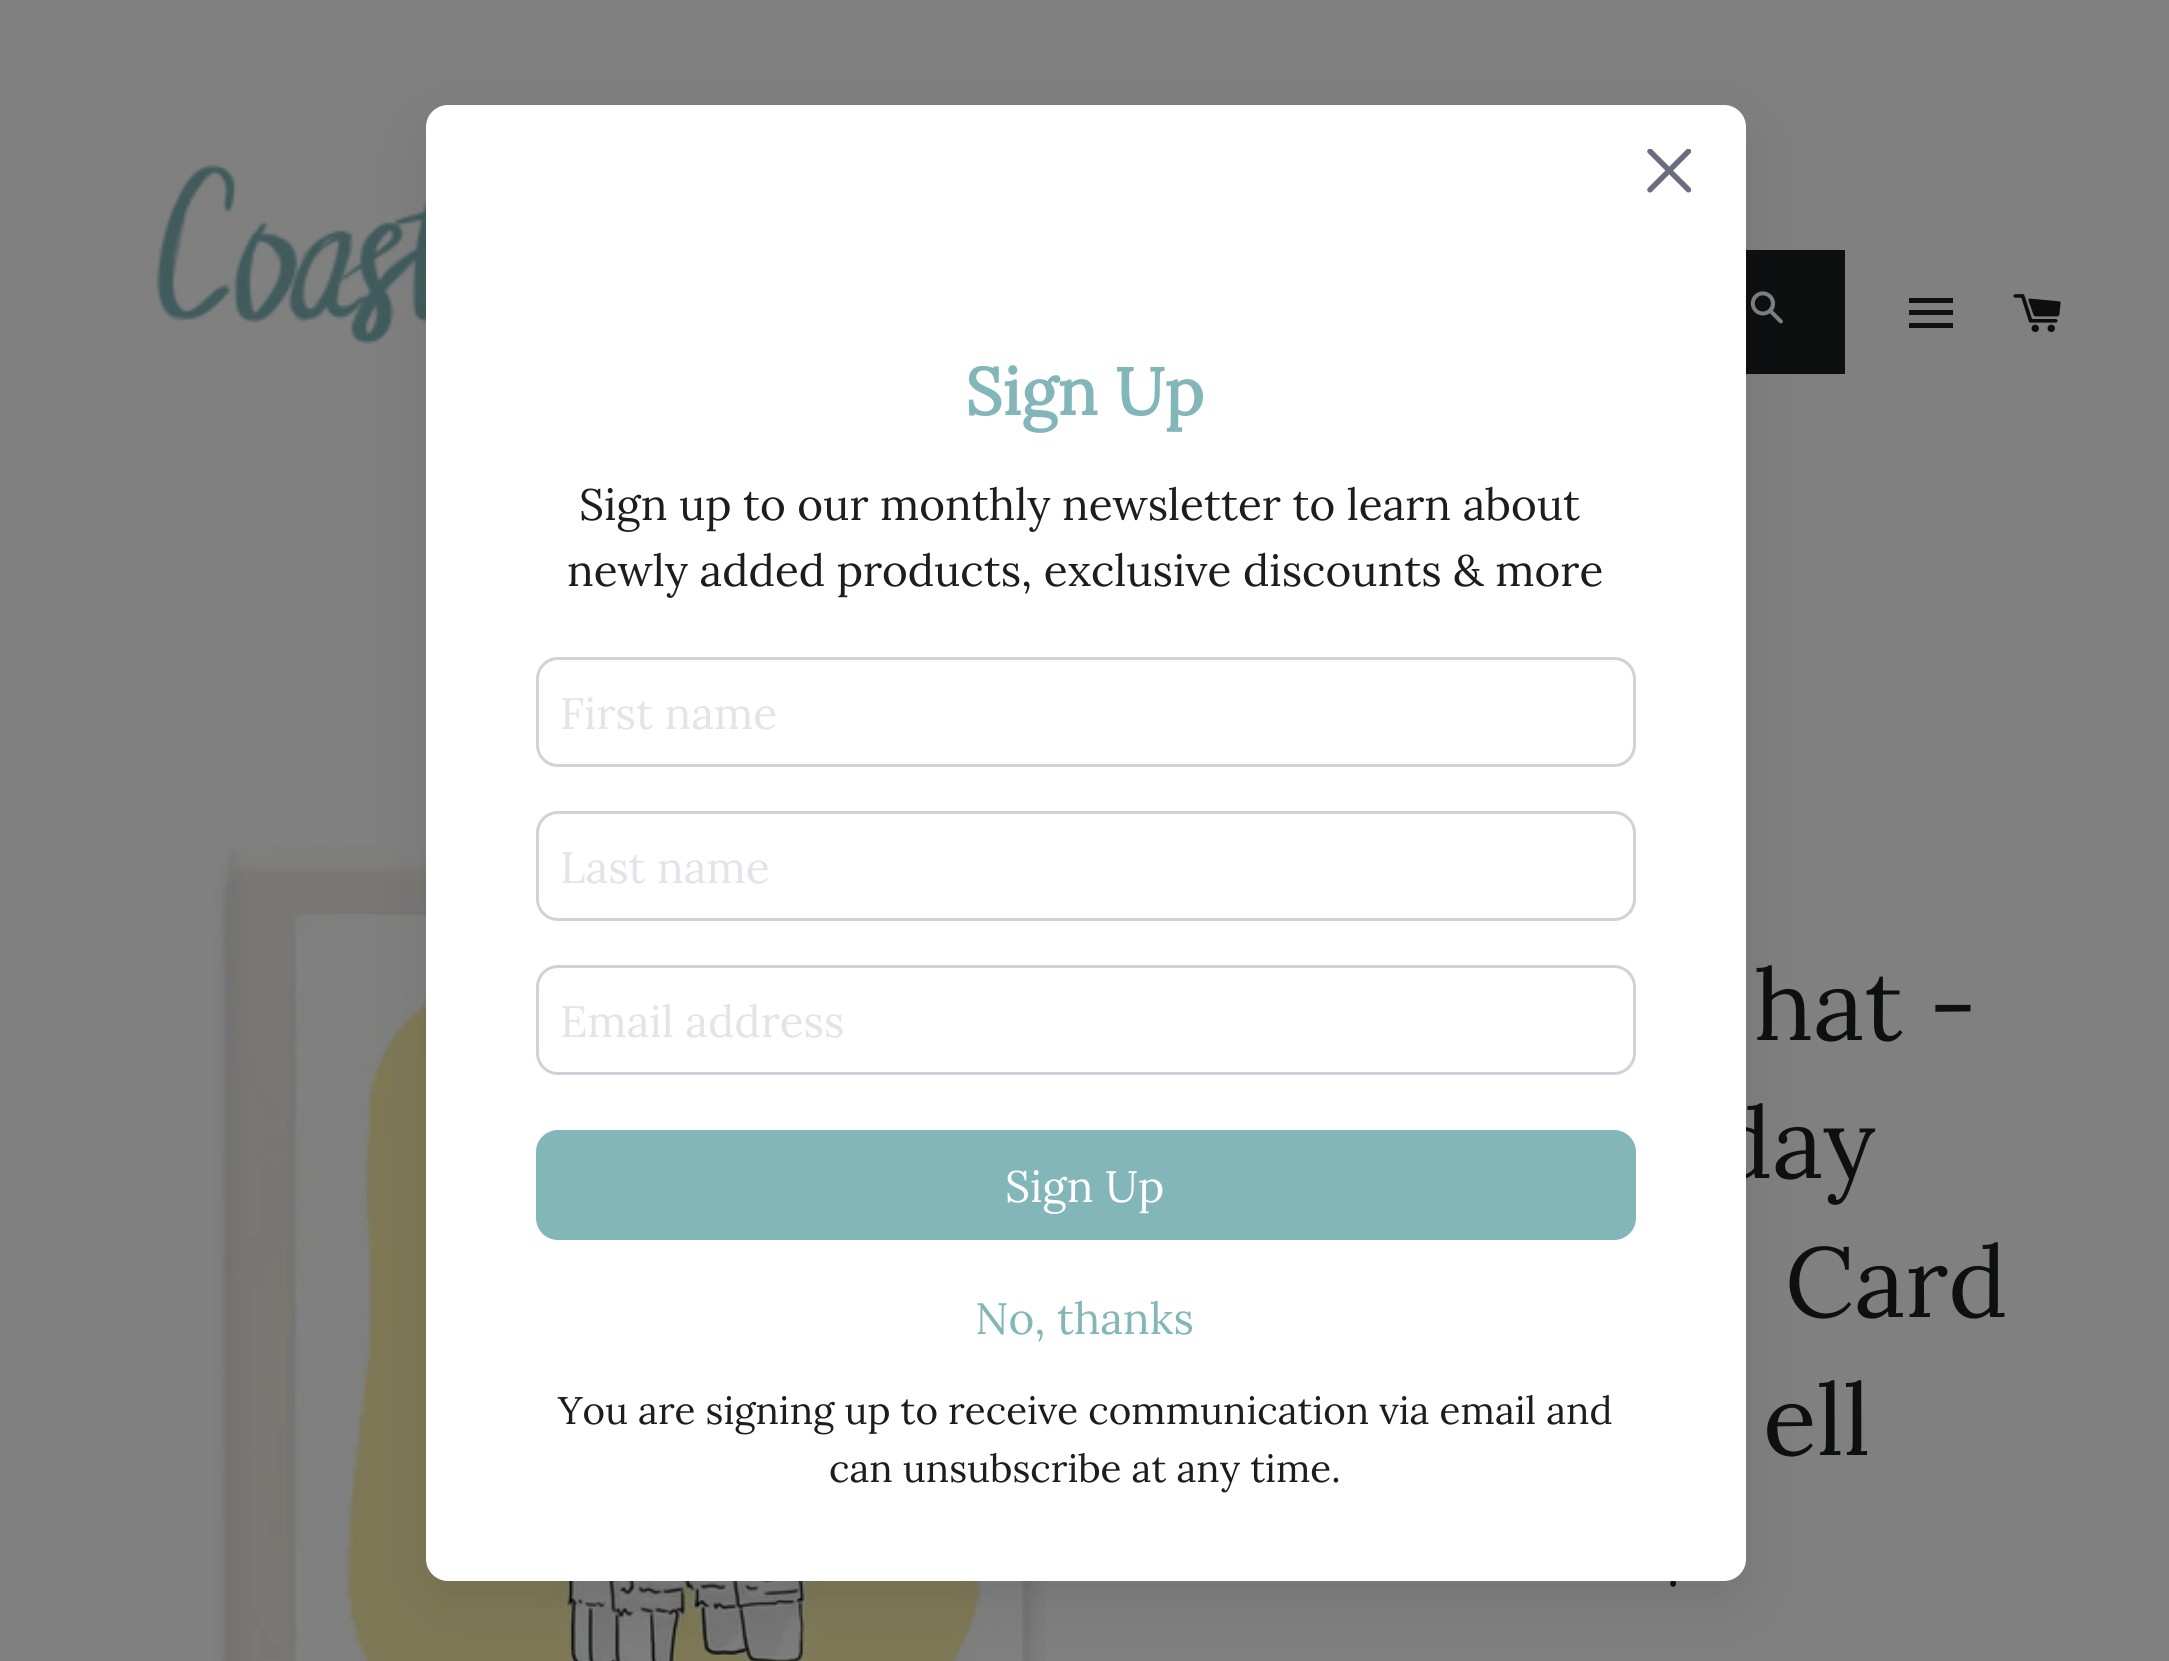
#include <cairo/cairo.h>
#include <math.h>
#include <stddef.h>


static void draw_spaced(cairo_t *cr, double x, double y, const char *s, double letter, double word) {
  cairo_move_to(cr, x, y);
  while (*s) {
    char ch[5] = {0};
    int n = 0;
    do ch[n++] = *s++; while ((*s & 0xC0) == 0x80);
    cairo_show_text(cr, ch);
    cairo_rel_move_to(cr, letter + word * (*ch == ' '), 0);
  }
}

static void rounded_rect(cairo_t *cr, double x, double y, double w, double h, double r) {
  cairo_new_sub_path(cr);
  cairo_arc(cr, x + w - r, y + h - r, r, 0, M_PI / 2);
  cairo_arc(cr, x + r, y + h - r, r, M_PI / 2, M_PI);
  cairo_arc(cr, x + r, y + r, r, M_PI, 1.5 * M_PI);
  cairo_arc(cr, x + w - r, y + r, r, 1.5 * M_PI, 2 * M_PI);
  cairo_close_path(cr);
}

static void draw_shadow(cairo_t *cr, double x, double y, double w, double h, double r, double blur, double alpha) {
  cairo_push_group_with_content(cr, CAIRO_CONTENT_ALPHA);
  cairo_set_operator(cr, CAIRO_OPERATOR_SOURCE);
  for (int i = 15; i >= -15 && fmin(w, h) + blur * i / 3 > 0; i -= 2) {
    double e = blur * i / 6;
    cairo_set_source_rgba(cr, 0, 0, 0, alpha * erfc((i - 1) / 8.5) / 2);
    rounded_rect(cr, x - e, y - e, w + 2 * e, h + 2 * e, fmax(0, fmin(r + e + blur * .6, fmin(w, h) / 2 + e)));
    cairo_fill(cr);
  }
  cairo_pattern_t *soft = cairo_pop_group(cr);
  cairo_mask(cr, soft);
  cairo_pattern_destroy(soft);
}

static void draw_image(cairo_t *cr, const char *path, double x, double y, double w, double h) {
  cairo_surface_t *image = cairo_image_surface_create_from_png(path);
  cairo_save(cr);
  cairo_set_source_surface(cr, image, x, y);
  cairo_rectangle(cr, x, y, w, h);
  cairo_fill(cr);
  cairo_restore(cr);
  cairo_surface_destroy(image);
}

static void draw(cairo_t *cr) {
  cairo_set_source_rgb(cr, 128 / 255.0, 128 / 255.0, 128 / 255.0);
  cairo_paint(cr);
  draw_image(cr, "images/2.png", 156, 164, 270, 181);
  cairo_set_source_rgb(cr, 14 / 255.0, 15 / 255.0, 15 / 255.0);
  cairo_rectangle(cr, 1746, 250, 99, 124);
  cairo_fill(cr);
  draw_image(cr, "images/3.png", 1750, 291, 33, 33);
  draw_image(cr, "images/5.png", 213, 844, 832, 817);
  cairo_set_source_rgb(cr, 18 / 255.0, 17 / 255.0, 39 / 255.0);
  draw_shadow(cr, 426, 127, 1320, 1476, 22, 27.5, 0.1);
  cairo_set_source_rgb(cr, 14 / 255.0, 15 / 255.0, 15 / 255.0);
  cairo_new_path(cr);
  cairo_move_to(cr, 1909, 298);
  cairo_line_to(cr, 1953, 298);
  cairo_line_to(cr, 1953, 303);
  cairo_line_to(cr, 1909, 303);
  cairo_close_path(cr);
  cairo_move_to(cr, 1909, 310);
  cairo_line_to(cr, 1953, 310);
  cairo_line_to(cr, 1953, 315);
  cairo_line_to(cr, 1909, 315);
  cairo_close_path(cr);
  cairo_move_to(cr, 1909, 323);
  cairo_line_to(cr, 1953, 323);
  cairo_line_to(cr, 1953, 328);
  cairo_line_to(cr, 1909, 328);
  cairo_close_path(cr);
  cairo_fill(cr);
  draw_image(cr, "images/4.png", 2013, 294, 48, 39);
  cairo_select_font_face(cr, "Lora", CAIRO_FONT_SLANT_NORMAL, CAIRO_FONT_WEIGHT_NORMAL);
  cairo_set_font_size(cr, 99);
  cairo_move_to(cr, 1754, 1040);
  cairo_show_text(cr, "hat -");
  cairo_move_to(cr, 1713, 1178);
  cairo_show_text(cr, "day");
  cairo_move_to(cr, 1785, 1317);
  cairo_show_text(cr, "Card");
  cairo_move_to(cr, 1763, 1455);
  cairo_show_text(cr, "ell");
  cairo_set_font_size(cr, 50);
  draw_spaced(cr, 1667, 1586, ".", 5, 0);
  cairo_set_source_rgb(cr, 1, 1, 1);
  rounded_rect(cr, 426, 105, 1320, 1476, 22);
  cairo_fill(cr);
  draw_image(cr, "images/1.png", 1647, 149, 44, 44);
  cairo_set_source_rgb(cr, 130 / 255.0, 182 / 255.0, 185 / 255.0);
  rounded_rect(cr, 536, 1130, 1100, 110, 22);
  cairo_fill(cr);
  cairo_set_font_size(cr, 44);
  cairo_set_source_rgb(cr, 1, 1, 1);
  cairo_move_to(cr, 1005, 1202);
  cairo_show_text(cr, "Sign Up");
  rounded_rect(cr, 537.5, 966.5, 1097, 107, 20.5);
  cairo_set_source_rgb(cr, 209 / 255.0, 209 / 255.0, 219 / 255.0);
  cairo_set_line_width(cr, 3);
  cairo_stroke(cr);
  cairo_set_source_rgb(cr, 227 / 255.0, 227 / 255.0, 233 / 255.0);
  cairo_move_to(cr, 560, 1037);
  cairo_show_text(cr, "Email address");
  rounded_rect(cr, 537.5, 812.5, 1097, 107, 20.5);
  cairo_set_source_rgb(cr, 209 / 255.0, 209 / 255.0, 219 / 255.0);
  cairo_stroke(cr);
  cairo_set_source_rgb(cr, 227 / 255.0, 227 / 255.0, 233 / 255.0);
  cairo_move_to(cr, 560, 883);
  cairo_show_text(cr, "Last name");
  rounded_rect(cr, 537.5, 658.5, 1097, 107, 20.5);
  cairo_set_source_rgb(cr, 209 / 255.0, 209 / 255.0, 219 / 255.0);
  cairo_stroke(cr);
  cairo_set_source_rgb(cr, 227 / 255.0, 227 / 255.0, 233 / 255.0);
  cairo_move_to(cr, 560, 729);
  cairo_show_text(cr, "First name");
  cairo_set_font_size(cr, 38.5);
  cairo_set_source_rgb(cr, 28 / 255.0, 29 / 255.0, 29 / 255.0);
  cairo_move_to(cr, 829, 1482);
  cairo_show_text(cr, "can unsubscribe at any time.");
  cairo_move_to(cr, 558, 1424);
  cairo_show_text(cr, "You are signing up to receive communication via email and");
  cairo_set_font_size(cr, 44);
  cairo_set_source_rgb(cr, 130 / 255.0, 182 / 255.0, 185 / 255.0);
  cairo_move_to(cr, 975, 1334);
  cairo_show_text(cr, "No, thanks");
  cairo_set_source_rgb(cr, 28 / 255.0, 29 / 255.0, 29 / 255.0);
  cairo_move_to(cr, 567, 586);
  cairo_show_text(cr, "newly added products, exclusive discounts & more");
  cairo_move_to(cr, 579, 520);
  cairo_show_text(cr, "Sign up to our monthly newsletter to learn about");
  cairo_select_font_face(cr, "Lora", CAIRO_FONT_SLANT_NORMAL, CAIRO_FONT_WEIGHT_BOLD);
  cairo_set_font_size(cr, 66);
  cairo_set_source_rgb(cr, 130 / 255.0, 182 / 255.0, 185 / 255.0);
  cairo_move_to(cr, 965, 415);
  cairo_show_text(cr, "Sign Up");
}

int main(void) {
  cairo_surface_t *surface = cairo_image_surface_create(CAIRO_FORMAT_RGB24, 2169, 1661);
  cairo_t *cr = cairo_create(surface);
  cairo_font_options_t *options = cairo_font_options_create();
  cairo_font_options_set_hint_metrics(options, CAIRO_HINT_METRICS_OFF);
  cairo_font_options_set_hint_style(options, CAIRO_HINT_STYLE_NONE);
  cairo_set_font_options(cr, options);
  cairo_set_miter_limit(cr, 4);
  draw(cr);
  cairo_surface_write_to_png(surface, "out.png");
  cairo_font_options_destroy(options);
  cairo_destroy(cr);
  cairo_surface_destroy(surface);
  return 0;
}
